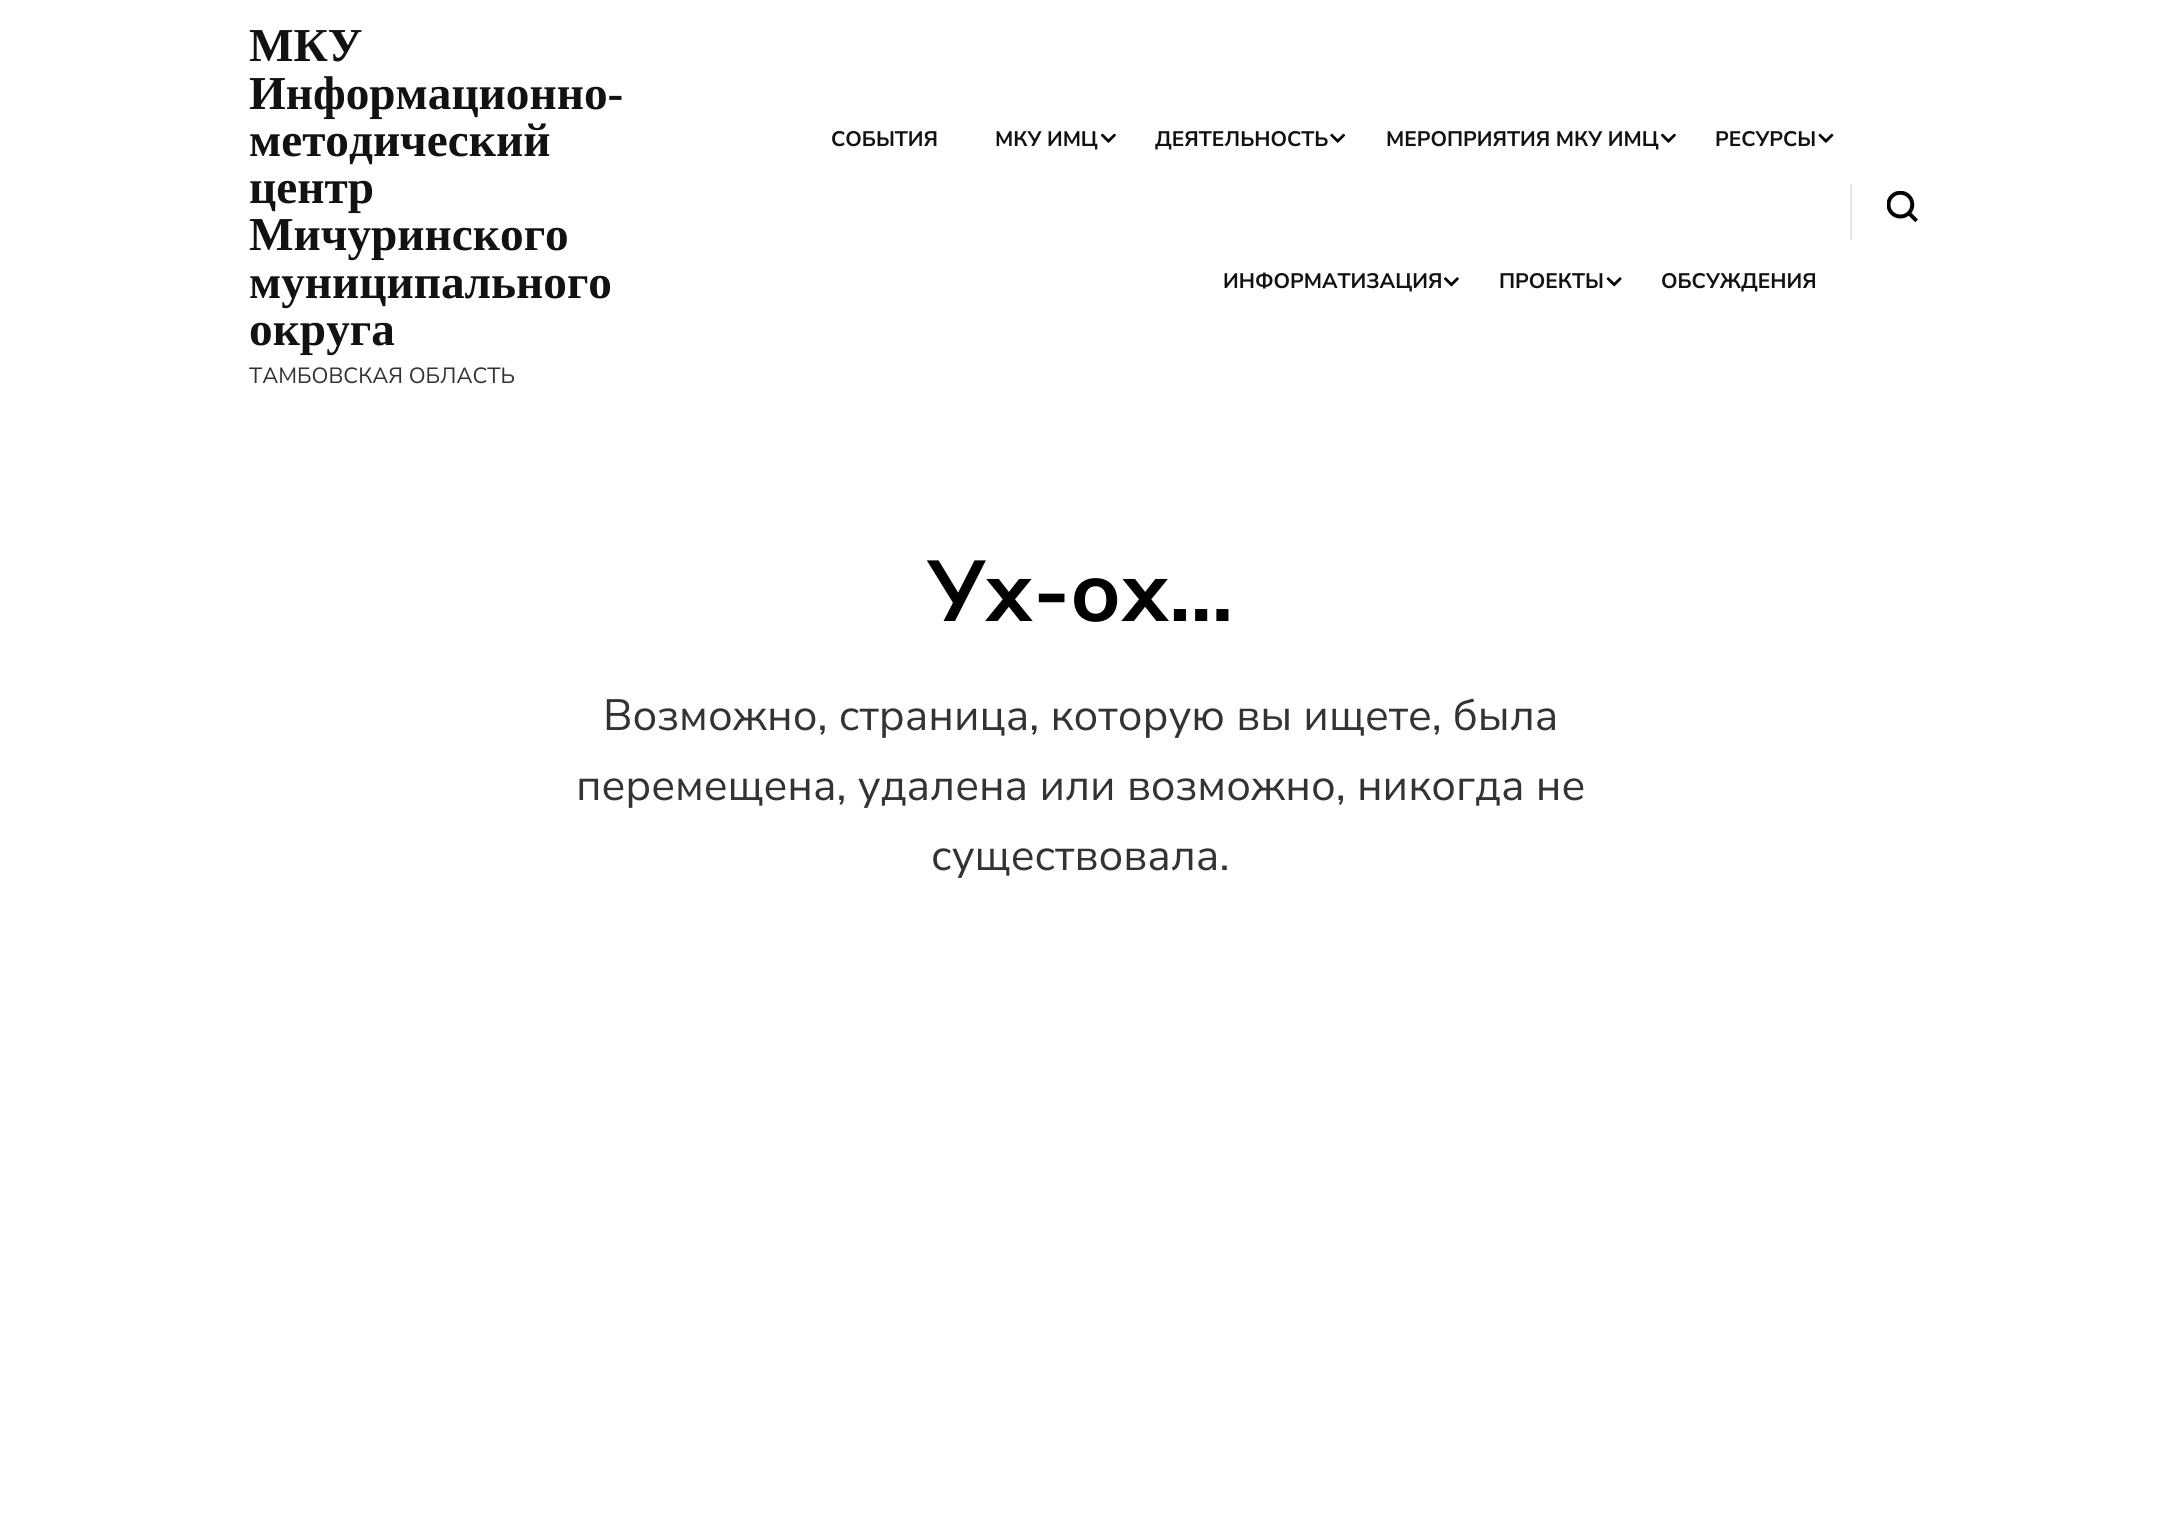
#include <cairo/cairo.h>
#include <math.h>
#include <stddef.h>


static void draw_image(cairo_t *cr, const char *path, double x, double y, double w, double h) {
  cairo_surface_t *image = cairo_image_surface_create_from_png(path);
  cairo_save(cr);
  cairo_set_source_surface(cr, image, x, y);
  cairo_rectangle(cr, x, y, w, h);
  cairo_fill(cr);
  cairo_restore(cr);
  cairo_surface_destroy(image);
}

static void draw(cairo_t *cr) {
  cairo_set_source_rgb(cr, 1, 1, 1);
  cairo_paint(cr);
  draw_image(cr, "images/1.png", 1101, 133, 15, 10);
  draw_image(cr, "images/2.png", 1330, 133, 16, 10);
  draw_image(cr, "images/1.png", 1661, 133, 15, 10);
  draw_image(cr, "images/3.png", 1818, 133, 16, 10);
  draw_image(cr, "images/4.png", 1444, 277, 15, 10);
  draw_image(cr, "images/5.png", 1606, 277, 16, 10);
  cairo_set_source_rgb(cr, 230 / 255.0, 230 / 255.0, 230 / 255.0);
  cairo_rectangle(cr, 1850, 184, 2, 56);
  cairo_fill(cr);
  draw_image(cr, "images/6.png", 1887, 191, 31, 31);
  cairo_select_font_face(cr, "Liberation Serif", CAIRO_FONT_SLANT_NORMAL, CAIRO_FONT_WEIGHT_BOLD);
  cairo_set_font_size(cr, 47.25);
  cairo_set_source_rgb(cr, 18 / 255.0, 18 / 255.0, 18 / 255.0);
  cairo_move_to(cr, 249, 61);
  cairo_show_text(cr, "МКУ");
  cairo_move_to(cr, 249, 109);
  cairo_show_text(cr, "Информационно-");
  cairo_move_to(cr, 249, 156);
  cairo_show_text(cr, "методический");
  cairo_move_to(cr, 249, 203);
  cairo_show_text(cr, "центр");
  cairo_move_to(cr, 249, 250);
  cairo_show_text(cr, "Мичуринского");
  cairo_move_to(cr, 249, 298);
  cairo_show_text(cr, "муниципального");
  cairo_move_to(cr, 249, 345);
  cairo_show_text(cr, "округа");
  cairo_select_font_face(cr, "Nunito Sans", CAIRO_FONT_SLANT_NORMAL, CAIRO_FONT_WEIGHT_NORMAL);
  cairo_set_font_size(cr, 22);
  cairo_set_source_rgb(cr, 51 / 255.0, 51 / 255.0, 51 / 255.0);
  cairo_move_to(cr, 249, 383);
  cairo_show_text(cr, "ТАМБОВСКАЯ ОБЛАСТЬ");
  cairo_select_font_face(cr, "Nunito Sans", CAIRO_FONT_SLANT_NORMAL, CAIRO_FONT_WEIGHT_BOLD);
  cairo_set_font_size(cr, 21);
  cairo_set_source_rgb(cr, 18 / 255.0, 18 / 255.0, 18 / 255.0);
  cairo_move_to(cr, 831, 146);
  cairo_show_text(cr, "СОБЫТИЯ");
  cairo_move_to(cr, 995, 146);
  cairo_show_text(cr, "МКУ ИМЦ");
  cairo_move_to(cr, 1155, 146);
  cairo_show_text(cr, "ДЕЯТЕЛЬНОСТЬ");
  cairo_move_to(cr, 1386, 146);
  cairo_show_text(cr, "МЕРОПРИЯТИЯ МКУ ИМЦ");
  cairo_move_to(cr, 1715, 146);
  cairo_show_text(cr, "РЕСУРСЫ");
  cairo_move_to(cr, 1223, 288);
  cairo_show_text(cr, "ИНФОРМАТИЗАЦИЯ");
  cairo_move_to(cr, 1499, 288);
  cairo_show_text(cr, "ПРОЕКТЫ");
  cairo_move_to(cr, 1661, 288);
  cairo_show_text(cr, "ОБСУЖДЕНИЯ");
  cairo_set_font_size(cr, 86);
  cairo_set_source_rgb(cr, 0, 0, 0);
  cairo_move_to(cr, 928, 621);
  cairo_show_text(cr, "Ух-ох...");
  cairo_select_font_face(cr, "Nunito Sans", CAIRO_FONT_SLANT_NORMAL, CAIRO_FONT_WEIGHT_NORMAL);
  cairo_set_font_size(cr, 43.75);
  cairo_set_source_rgb(cr, 51 / 255.0, 51 / 255.0, 51 / 255.0);
  cairo_move_to(cr, 603, 730);
  cairo_show_text(cr, "Возможно, страница, которую вы ищете, была");
  cairo_move_to(cr, 576, 800);
  cairo_show_text(cr, "перемещена, удалена или возможно, никогда не");
  cairo_move_to(cr, 931, 870);
  cairo_show_text(cr, "существовала.");
}

int main(void) {
  cairo_surface_t *surface = cairo_image_surface_create(CAIRO_FORMAT_RGB24, 2158, 1530);
  cairo_t *cr = cairo_create(surface);
  cairo_font_options_t *options = cairo_font_options_create();
  cairo_font_options_set_hint_metrics(options, CAIRO_HINT_METRICS_OFF);
  cairo_font_options_set_hint_style(options, CAIRO_HINT_STYLE_NONE);
  cairo_set_font_options(cr, options);
  cairo_set_miter_limit(cr, 4);
  draw(cr);
  cairo_surface_write_to_png(surface, "out.png");
  cairo_font_options_destroy(options);
  cairo_destroy(cr);
  cairo_surface_destroy(surface);
  return 0;
}
